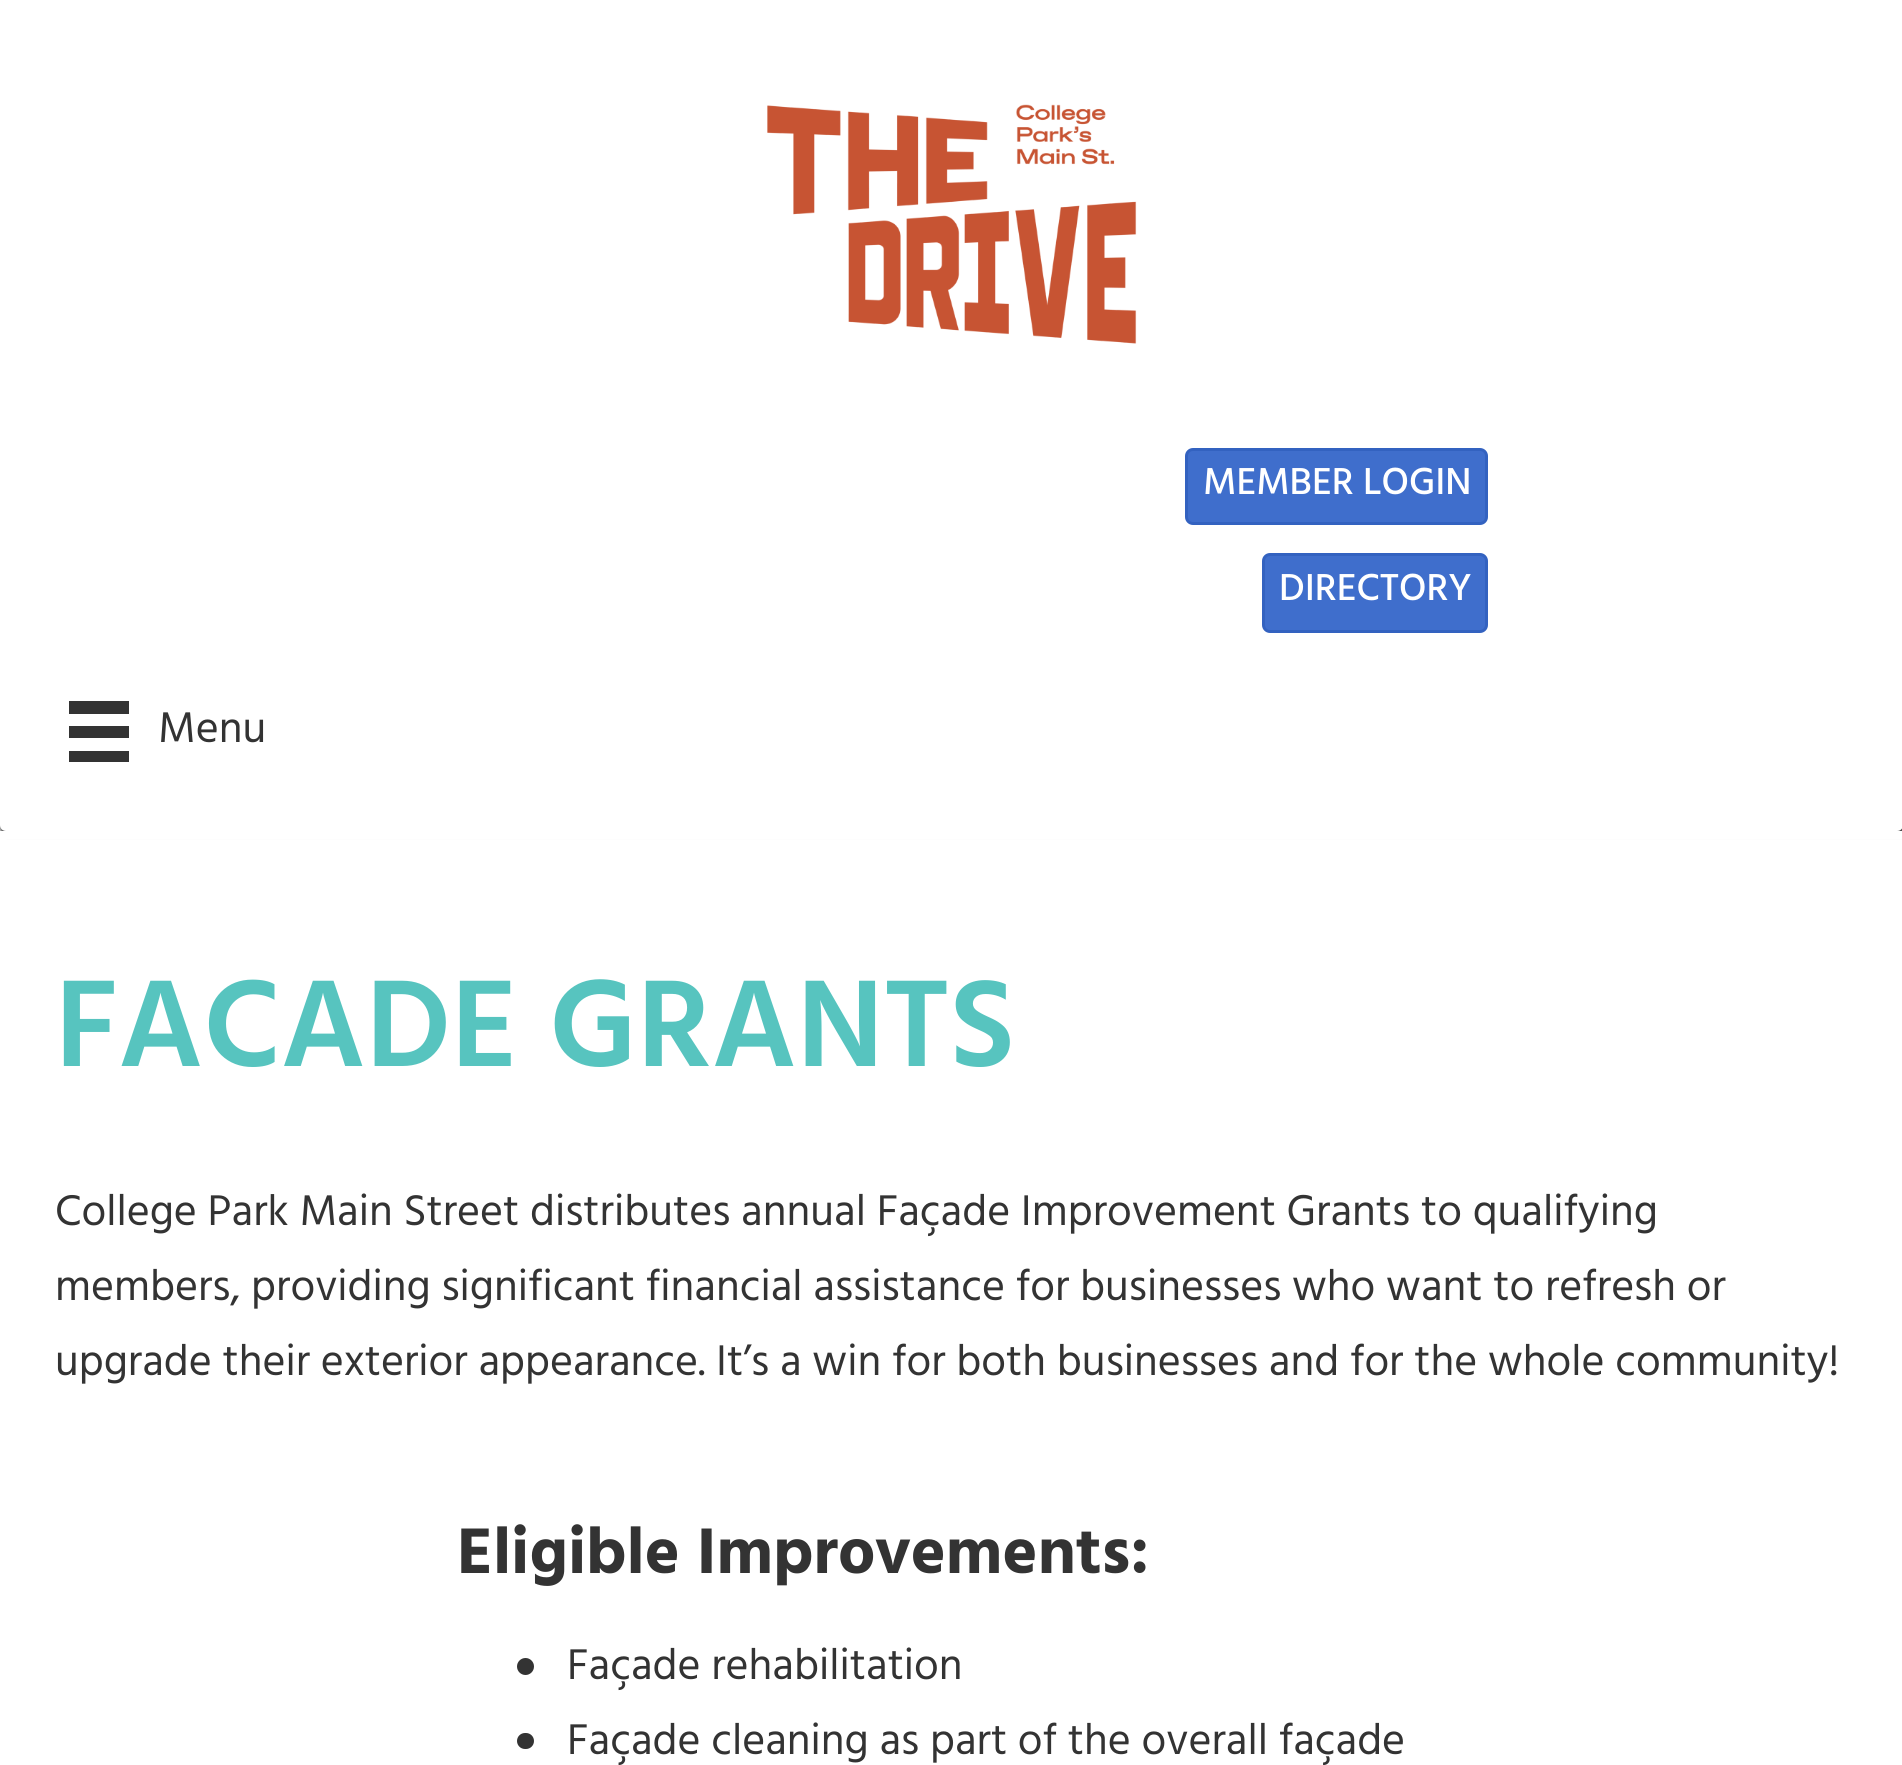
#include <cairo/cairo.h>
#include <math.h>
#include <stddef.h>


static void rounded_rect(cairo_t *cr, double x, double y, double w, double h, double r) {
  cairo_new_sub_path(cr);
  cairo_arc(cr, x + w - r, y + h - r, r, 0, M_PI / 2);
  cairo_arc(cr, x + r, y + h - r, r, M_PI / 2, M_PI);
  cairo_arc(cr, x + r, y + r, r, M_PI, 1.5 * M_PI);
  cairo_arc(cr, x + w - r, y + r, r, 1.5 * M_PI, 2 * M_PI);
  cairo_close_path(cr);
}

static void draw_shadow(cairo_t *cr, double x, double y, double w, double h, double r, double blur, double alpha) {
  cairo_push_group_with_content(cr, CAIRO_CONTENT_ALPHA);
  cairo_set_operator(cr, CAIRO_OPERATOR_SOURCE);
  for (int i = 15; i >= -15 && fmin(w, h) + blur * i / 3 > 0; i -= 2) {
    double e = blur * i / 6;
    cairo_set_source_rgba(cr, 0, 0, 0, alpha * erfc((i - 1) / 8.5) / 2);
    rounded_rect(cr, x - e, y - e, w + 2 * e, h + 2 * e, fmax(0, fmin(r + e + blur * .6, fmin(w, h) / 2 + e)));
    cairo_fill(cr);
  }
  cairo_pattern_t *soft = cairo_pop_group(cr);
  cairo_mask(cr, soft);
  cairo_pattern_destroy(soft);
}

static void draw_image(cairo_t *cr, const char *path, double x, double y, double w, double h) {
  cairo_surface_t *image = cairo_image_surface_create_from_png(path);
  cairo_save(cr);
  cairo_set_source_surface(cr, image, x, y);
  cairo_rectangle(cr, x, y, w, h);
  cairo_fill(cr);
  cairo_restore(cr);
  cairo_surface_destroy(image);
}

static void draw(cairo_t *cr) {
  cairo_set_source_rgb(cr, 1, 1, 1);
  cairo_paint(cr);
  cairo_set_source_rgb(cr, 51 / 255.0, 51 / 255.0, 51 / 255.0);
  draw_shadow(cr, 0, 0, 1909, 836, 8, 1.5, 0.89);
  cairo_set_source_rgb(cr, 1, 1, 1);
  cairo_new_path(cr);
  cairo_move_to(cr, 0, 0);
  cairo_line_to(cr, 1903, 0);
  cairo_line_to(cr, 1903, 825);
  cairo_curve_to(cr, 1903, 828.5, 1900.5, 831, 1897, 831);
  cairo_line_to(cr, 6, 831);
  cairo_curve_to(cr, 2.5, 831, 0, 828.5, 0, 825);
  cairo_close_path(cr);
  cairo_fill(cr);
  draw_image(cr, "images/1.png", 767, 104, 370, 240);
  cairo_set_source_rgb(cr, 63 / 255.0, 110 / 255.0, 204 / 255.0);
  rounded_rect(cr, 1186.5, 449.5, 300, 74, 6.5);
  cairo_fill_preserve(cr);
  cairo_set_source_rgb(cr, 51 / 255.0, 98 / 255.0, 192 / 255.0);
  cairo_set_line_width(cr, 3);
  cairo_stroke(cr);
  cairo_set_source_rgb(cr, 63 / 255.0, 110 / 255.0, 204 / 255.0);
  rounded_rect(cr, 1263.5, 554.5, 223, 77, 6.5);
  cairo_fill_preserve(cr);
  cairo_set_source_rgb(cr, 51 / 255.0, 98 / 255.0, 192 / 255.0);
  cairo_stroke(cr);
  cairo_set_source_rgb(cr, 51 / 255.0, 51 / 255.0, 51 / 255.0);
  cairo_rectangle(cr, 69, 701, 60, 13);
  cairo_fill(cr);
  cairo_rectangle(cr, 69, 726, 60, 12);
  cairo_fill(cr);
  cairo_rectangle(cr, 69, 751, 60, 11);
  cairo_fill(cr);
  cairo_set_source_rgb(cr, 1, 1, 1);
  cairo_rectangle(cr, 0, 831, 1902, 8);
  cairo_fill(cr);
  cairo_set_source_rgb(cr, 51 / 255.0, 51 / 255.0, 51 / 255.0);
  cairo_arc(cr, 525.5, 1666.5, 8.5, 0, 2 * M_PI);
  cairo_fill(cr);
  rounded_rect(cr, 517, 1733, 17, 16, 8);
  cairo_fill(cr);
  cairo_select_font_face(cr, "Hind Medium", CAIRO_FONT_SLANT_NORMAL, CAIRO_FONT_WEIGHT_NORMAL);
  cairo_set_font_size(cr, 38.5);
  cairo_set_source_rgb(cr, 1, 1, 1);
  cairo_move_to(cr, 1203, 494);
  cairo_show_text(cr, "MEMBER LOGIN");
  cairo_move_to(cr, 1279, 600);
  cairo_show_text(cr, "DIRECTORY");
  cairo_select_font_face(cr, "Hind", CAIRO_FONT_SLANT_NORMAL, CAIRO_FONT_WEIGHT_NORMAL);
  cairo_set_font_size(cr, 44);
  cairo_set_source_rgb(cr, 51 / 255.0, 51 / 255.0, 51 / 255.0);
  cairo_move_to(cr, 158, 742);
  cairo_show_text(cr, "Menu");
  cairo_select_font_face(cr, "Hind SemiBold", CAIRO_FONT_SLANT_NORMAL, CAIRO_FONT_WEIGHT_NORMAL);
  cairo_set_font_size(cr, 126.5);
  cairo_set_source_rgb(cr, 87 / 255.0, 196 / 255.0, 191 / 255.0);
  cairo_move_to(cr, 55, 1066);
  cairo_show_text(cr, "FACADE GRANTS");
  cairo_select_font_face(cr, "Hind", CAIRO_FONT_SLANT_NORMAL, CAIRO_FONT_WEIGHT_NORMAL);
  cairo_set_font_size(cr, 44);
  cairo_set_source_rgb(cr, 51 / 255.0, 51 / 255.0, 51 / 255.0);
  cairo_move_to(cr, 55, 1225);
  cairo_show_text(cr, "College Park Main Street distributes annual Façade Improvement Grants to qualifying");
  cairo_move_to(cr, 55, 1300);
  cairo_show_text(cr, "members, providing significant financial assistance for businesses who want to refresh or");
  cairo_move_to(cr, 55, 1375);
  cairo_show_text(cr, "upgrade their exterior appearance. It’s a win for both businesses and for the whole community!");
  cairo_select_font_face(cr, "Hind", CAIRO_FONT_SLANT_NORMAL, CAIRO_FONT_WEIGHT_BOLD);
  cairo_set_font_size(cr, 66);
  cairo_move_to(cr, 457, 1573);
  cairo_show_text(cr, "Eligible Improvements:");
  cairo_select_font_face(cr, "Hind", CAIRO_FONT_SLANT_NORMAL, CAIRO_FONT_WEIGHT_NORMAL);
  cairo_set_font_size(cr, 44);
  cairo_move_to(cr, 567, 1679);
  cairo_show_text(cr, "Façade rehabilitation");
  cairo_move_to(cr, 567, 1754);
  cairo_show_text(cr, "Façade cleaning as part of the overall façade");
}

int main(void) {
  cairo_surface_t *surface = cairo_image_surface_create(CAIRO_FORMAT_RGB24, 1902, 1765);
  cairo_t *cr = cairo_create(surface);
  cairo_font_options_t *options = cairo_font_options_create();
  cairo_font_options_set_hint_metrics(options, CAIRO_HINT_METRICS_OFF);
  cairo_font_options_set_hint_style(options, CAIRO_HINT_STYLE_NONE);
  cairo_set_font_options(cr, options);
  cairo_set_miter_limit(cr, 4);
  draw(cr);
  cairo_surface_write_to_png(surface, "out.png");
  cairo_font_options_destroy(options);
  cairo_destroy(cr);
  cairo_surface_destroy(surface);
  return 0;
}
